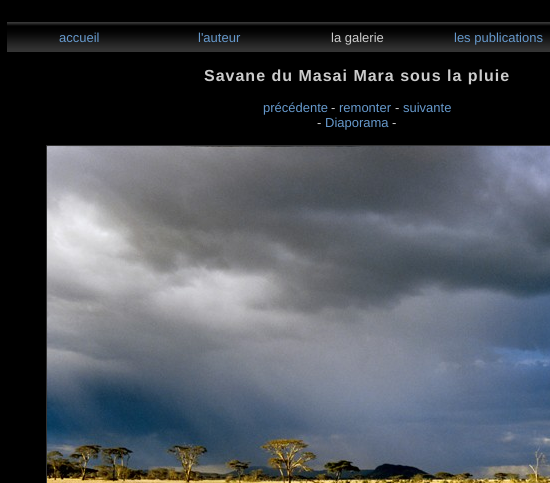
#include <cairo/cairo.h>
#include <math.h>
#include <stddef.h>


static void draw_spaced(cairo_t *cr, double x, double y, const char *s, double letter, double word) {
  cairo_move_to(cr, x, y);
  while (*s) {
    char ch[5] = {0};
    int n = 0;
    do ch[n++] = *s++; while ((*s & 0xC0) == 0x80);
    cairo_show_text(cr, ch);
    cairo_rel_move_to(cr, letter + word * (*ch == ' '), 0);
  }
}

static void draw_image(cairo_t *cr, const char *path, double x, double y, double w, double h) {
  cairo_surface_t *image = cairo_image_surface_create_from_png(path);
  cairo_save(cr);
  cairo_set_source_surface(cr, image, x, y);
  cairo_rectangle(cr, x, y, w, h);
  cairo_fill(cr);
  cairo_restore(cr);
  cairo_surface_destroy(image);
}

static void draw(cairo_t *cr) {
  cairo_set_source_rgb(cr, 0, 0, 0);
  cairo_paint(cr);
  draw_image(cr, "images/1.png", 7, 22, 543, 30);
  cairo_rectangle(cr, 46.5, 145.5, 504, 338);
  cairo_set_source_rgb(cr, 51 / 255.0, 51 / 255.0, 51 / 255.0);
  cairo_set_line_width(cr, 1);
  cairo_stroke(cr);
  draw_image(cr, "images/2.png", 47, 146, 503, 337);
  cairo_select_font_face(cr, "Liberation Sans", CAIRO_FONT_SLANT_NORMAL, CAIRO_FONT_WEIGHT_NORMAL);
  cairo_set_font_size(cr, 13);
  cairo_set_source_rgb(cr, 102 / 255.0, 153 / 255.0, 204 / 255.0);
  cairo_move_to(cr, 59, 42);
  cairo_show_text(cr, "accueil");
  cairo_move_to(cr, 198, 42);
  cairo_show_text(cr, "l'auteur");
  cairo_set_source_rgb(cr, 204 / 255.0, 204 / 255.0, 204 / 255.0);
  cairo_move_to(cr, 331, 42);
  cairo_show_text(cr, "la galerie");
  cairo_set_source_rgb(cr, 102 / 255.0, 153 / 255.0, 204 / 255.0);
  cairo_move_to(cr, 454, 42);
  cairo_show_text(cr, "les publications");
  cairo_select_font_face(cr, "Liberation Sans", CAIRO_FONT_SLANT_NORMAL, CAIRO_FONT_WEIGHT_BOLD);
  cairo_set_font_size(cr, 16);
  cairo_set_source_rgb(cr, 204 / 255.0, 204 / 255.0, 204 / 255.0);
  draw_spaced(cr, 204, 81, "Savane du Masai Mara sous la pluie", 1, 0);
  cairo_select_font_face(cr, "Liberation Sans", CAIRO_FONT_SLANT_NORMAL, CAIRO_FONT_WEIGHT_NORMAL);
  cairo_set_font_size(cr, 13);
  cairo_set_source_rgb(cr, 102 / 255.0, 153 / 255.0, 204 / 255.0);
  cairo_move_to(cr, 263, 112);
  cairo_show_text(cr, "précédente");
  cairo_set_source_rgb(cr, 204 / 255.0, 204 / 255.0, 204 / 255.0);
  cairo_move_to(cr, 331, 112);
  cairo_show_text(cr, "-");
  cairo_set_source_rgb(cr, 102 / 255.0, 153 / 255.0, 204 / 255.0);
  cairo_move_to(cr, 339, 112);
  cairo_show_text(cr, "remonter");
  cairo_set_source_rgb(cr, 204 / 255.0, 204 / 255.0, 204 / 255.0);
  cairo_move_to(cr, 395, 112);
  cairo_show_text(cr, "-");
  cairo_set_source_rgb(cr, 102 / 255.0, 153 / 255.0, 204 / 255.0);
  cairo_move_to(cr, 403, 112);
  cairo_show_text(cr, "suivante");
  cairo_set_source_rgb(cr, 204 / 255.0, 204 / 255.0, 204 / 255.0);
  cairo_move_to(cr, 317, 127);
  cairo_show_text(cr, "-");
  cairo_set_source_rgb(cr, 102 / 255.0, 153 / 255.0, 204 / 255.0);
  cairo_move_to(cr, 325, 127);
  cairo_show_text(cr, "Diaporama");
  cairo_set_source_rgb(cr, 204 / 255.0, 204 / 255.0, 204 / 255.0);
  cairo_move_to(cr, 392, 127);
  cairo_show_text(cr, "-");
}

int main(void) {
  cairo_surface_t *surface = cairo_image_surface_create(CAIRO_FORMAT_RGB24, 550, 483);
  cairo_t *cr = cairo_create(surface);
  cairo_font_options_t *options = cairo_font_options_create();
  cairo_font_options_set_hint_metrics(options, CAIRO_HINT_METRICS_OFF);
  cairo_font_options_set_hint_style(options, CAIRO_HINT_STYLE_NONE);
  cairo_set_font_options(cr, options);
  cairo_set_miter_limit(cr, 4);
  draw(cr);
  cairo_surface_write_to_png(surface, "out.png");
  cairo_font_options_destroy(options);
  cairo_destroy(cr);
  cairo_surface_destroy(surface);
  return 0;
}
